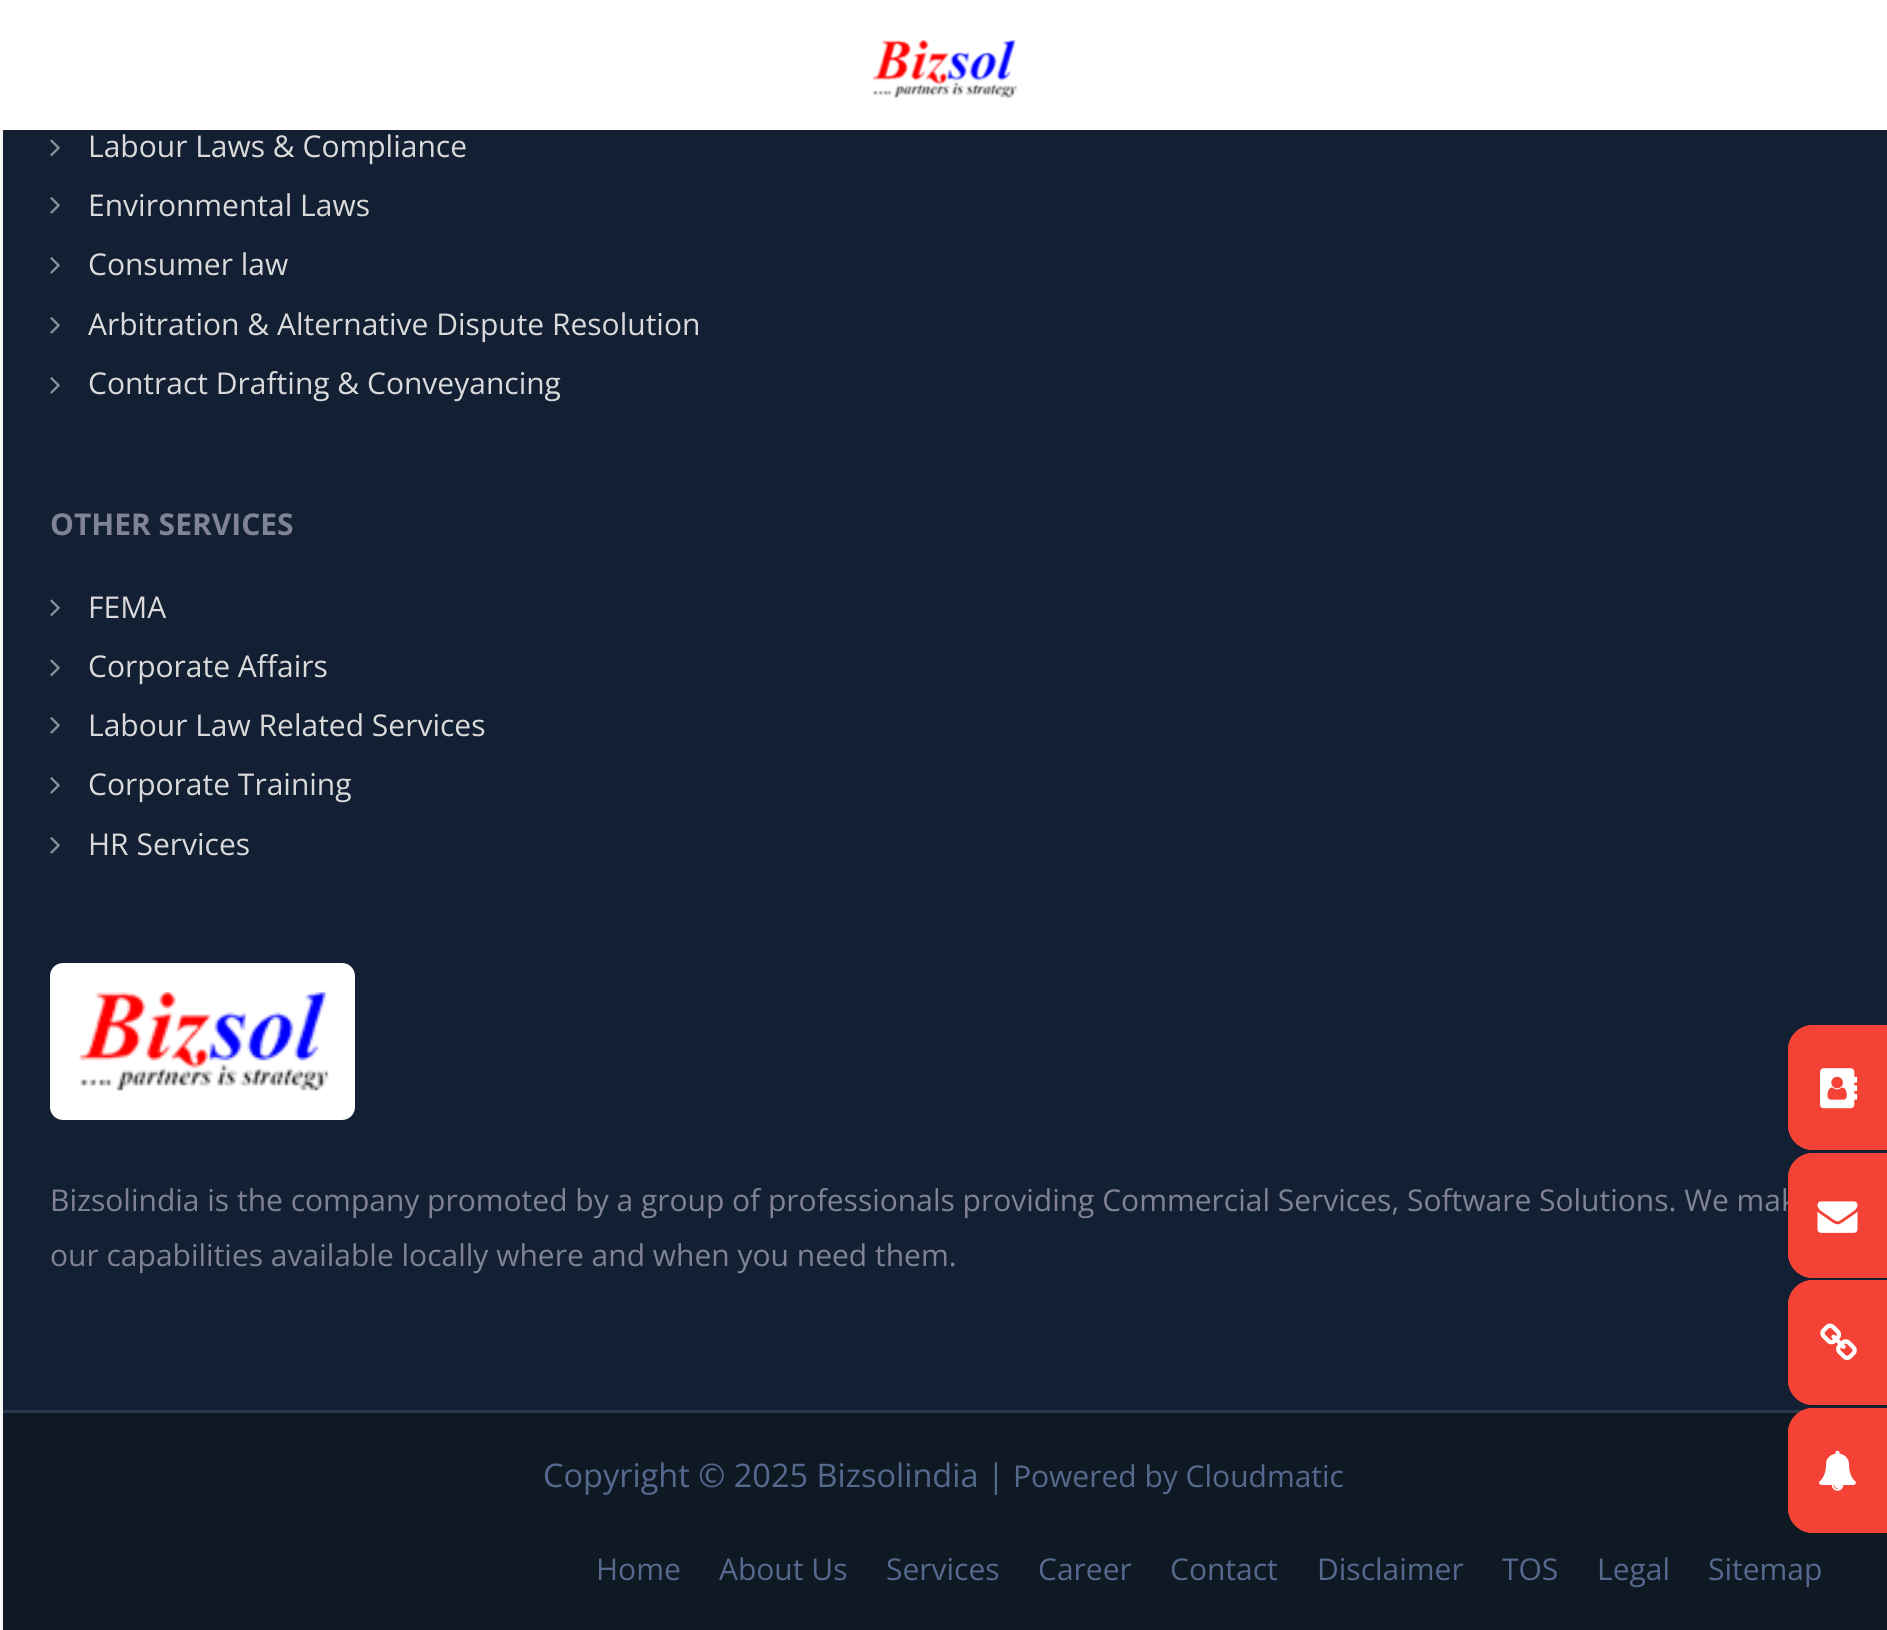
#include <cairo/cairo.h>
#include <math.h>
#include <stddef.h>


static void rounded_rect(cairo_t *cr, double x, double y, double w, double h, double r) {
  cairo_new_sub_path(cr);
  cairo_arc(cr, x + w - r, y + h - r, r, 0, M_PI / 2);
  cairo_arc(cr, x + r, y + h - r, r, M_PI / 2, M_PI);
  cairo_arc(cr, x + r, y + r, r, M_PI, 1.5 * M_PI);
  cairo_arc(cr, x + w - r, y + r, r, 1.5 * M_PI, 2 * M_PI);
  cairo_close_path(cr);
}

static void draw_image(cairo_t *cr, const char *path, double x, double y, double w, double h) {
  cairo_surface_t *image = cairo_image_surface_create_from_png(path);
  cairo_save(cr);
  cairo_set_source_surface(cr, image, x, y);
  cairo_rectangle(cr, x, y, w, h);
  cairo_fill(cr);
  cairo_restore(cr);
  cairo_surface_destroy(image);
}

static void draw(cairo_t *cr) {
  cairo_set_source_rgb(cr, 19 / 255.0, 31 / 255.0, 51 / 255.0);
  cairo_paint(cr);
  cairo_set_source_rgb(cr, 1, 1, 1);
  cairo_rectangle(cr, 0, 0, 1887, 130);
  cairo_fill(cr);
  draw_image(cr, "images/1.png", 872, 40, 145, 59);
  cairo_set_source_rgb(cr, 44 / 255.0, 54 / 255.0, 76 / 255.0);
  cairo_rectangle(cr, 0, 1410, 1804, 3);
  cairo_fill(cr);
  cairo_set_source_rgb(cr, 247 / 255.0, 247 / 255.0, 247 / 255.0);
  cairo_rectangle(cr, 0, 130, 3, 1500);
  cairo_fill(cr);
  draw_image(cr, "images/2.png", 50, 139, 10, 18);
  draw_image(cr, "images/3.png", 50, 197, 10, 17);
  draw_image(cr, "images/3.png", 50, 257, 10, 17);
  draw_image(cr, "images/3.png", 50, 317, 10, 17);
  draw_image(cr, "images/3.png", 50, 377, 10, 17);
  draw_image(cr, "images/2.png", 50, 599, 10, 18);
  draw_image(cr, "images/2.png", 50, 659, 10, 18);
  draw_image(cr, "images/3.png", 50, 717, 10, 17);
  draw_image(cr, "images/3.png", 50, 777, 10, 17);
  draw_image(cr, "images/3.png", 50, 837, 10, 17);
  cairo_set_source_rgb(cr, 1, 1, 1);
  rounded_rect(cr, 50, 963, 305, 157, 13);
  cairo_fill(cr);
  draw_image(cr, "images/4.png", 79, 991, 250, 100);
  cairo_set_source_rgb(cr, 15 / 255.0, 25 / 255.0, 35 / 255.0);
  cairo_rectangle(cr, 3, 1413, 1884, 217);
  cairo_fill(cr);
  cairo_set_source_rgb(cr, 244 / 255.0, 67 / 255.0, 54 / 255.0);
  rounded_rect(cr, 1788, 1025, 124, 125, 25);
  cairo_fill(cr);
  rounded_rect(cr, 1788, 1025, 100, 125, 25);
  cairo_fill(cr);
  draw_image(cr, "images/5.png", 1820, 1068, 38, 41);
  rounded_rect(cr, 1788, 1280, 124, 125, 25);
  cairo_fill(cr);
  rounded_rect(cr, 1788, 1280, 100, 125, 25);
  cairo_fill(cr);
  draw_image(cr, "images/7.png", 1820, 1323, 37, 37);
  rounded_rect(cr, 1788, 1408, 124, 125, 25);
  cairo_fill(cr);
  rounded_rect(cr, 1788, 1408, 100, 125, 25);
  cairo_fill(cr);
  draw_image(cr, "images/8.png", 1819, 1450, 37, 41);
  cairo_select_font_face(cr, "Open Sans", CAIRO_FONT_SLANT_NORMAL, CAIRO_FONT_WEIGHT_NORMAL);
  cairo_set_font_size(cr, 30);
  cairo_set_source_rgb(cr, 218 / 255.0, 218 / 255.0, 218 / 255.0);
  cairo_move_to(cr, 88, 157);
  cairo_show_text(cr, "Labour Laws & Compliance");
  cairo_move_to(cr, 88, 216);
  cairo_show_text(cr, "Environmental Laws");
  cairo_move_to(cr, 88, 275);
  cairo_show_text(cr, "Consumer law");
  cairo_move_to(cr, 88, 335);
  cairo_show_text(cr, "Arbitration & Alternative Dispute Resolution");
  cairo_move_to(cr, 88, 394);
  cairo_show_text(cr, "Contract Drafting & Conveyancing");
  cairo_select_font_face(cr, "Open Sans", CAIRO_FONT_SLANT_NORMAL, CAIRO_FONT_WEIGHT_BOLD);
  cairo_set_source_rgb(cr, 128 / 255.0, 130 / 255.0, 150 / 255.0);
  cairo_move_to(cr, 50, 535);
  cairo_show_text(cr, "OTHER SERVICES");
  cairo_select_font_face(cr, "Open Sans", CAIRO_FONT_SLANT_NORMAL, CAIRO_FONT_WEIGHT_NORMAL);
  cairo_set_source_rgb(cr, 218 / 255.0, 218 / 255.0, 218 / 255.0);
  cairo_move_to(cr, 88, 618);
  cairo_show_text(cr, "FEMA");
  cairo_move_to(cr, 88, 677);
  cairo_show_text(cr, "Corporate Affairs");
  cairo_move_to(cr, 88, 736);
  cairo_show_text(cr, "Labour Law Related Services");
  cairo_move_to(cr, 88, 795);
  cairo_show_text(cr, "Corporate Training");
  cairo_move_to(cr, 88, 855);
  cairo_show_text(cr, "HR Services");
  cairo_set_source_rgb(cr, 128 / 255.0, 130 / 255.0, 150 / 255.0);
  cairo_move_to(cr, 50, 1211);
  cairo_show_text(cr, "Bizsolindia is the company promoted by a group of professionals providing Commercial Services, Software Solutions. We mak");
  cairo_move_to(cr, 50, 1266);
  cairo_show_text(cr, "our capabilities available locally where and when you need them.");
  cairo_set_font_size(cr, 32.5);
  cairo_set_source_rgb(cr, 85 / 255.0, 105 / 255.0, 142 / 255.0);
  cairo_move_to(cr, 543, 1487);
  cairo_show_text(cr, "Copyright © 2025 Bizsolindia |");
  cairo_set_font_size(cr, 30);
  cairo_move_to(cr, 1013, 1487);
  cairo_show_text(cr, "Powered by Cloudmatic");
  cairo_move_to(cr, 596, 1580);
  cairo_show_text(cr, "Home");
  cairo_move_to(cr, 719, 1580);
  cairo_show_text(cr, "About Us");
  cairo_move_to(cr, 886, 1580);
  cairo_show_text(cr, "Services");
  cairo_move_to(cr, 1038, 1580);
  cairo_show_text(cr, "Career");
  cairo_move_to(cr, 1170, 1580);
  cairo_show_text(cr, "Contact");
  cairo_move_to(cr, 1317, 1580);
  cairo_show_text(cr, "Disclaimer");
  cairo_move_to(cr, 1502, 1580);
  cairo_show_text(cr, "TOS");
  cairo_move_to(cr, 1597, 1580);
  cairo_show_text(cr, "Legal");
  cairo_move_to(cr, 1708, 1580);
  cairo_show_text(cr, "Sitemap");
  cairo_set_source_rgb(cr, 244 / 255.0, 67 / 255.0, 54 / 255.0);
  rounded_rect(cr, 1788, 1153, 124, 125, 25);
  cairo_fill(cr);
  rounded_rect(cr, 1788, 1153, 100, 125, 25);
  cairo_fill(cr);
  draw_image(cr, "images/6.png", 1817, 1201, 41, 32);
}

int main(void) {
  cairo_surface_t *surface = cairo_image_surface_create(CAIRO_FORMAT_RGB24, 1887, 1630);
  cairo_t *cr = cairo_create(surface);
  cairo_font_options_t *options = cairo_font_options_create();
  cairo_font_options_set_hint_metrics(options, CAIRO_HINT_METRICS_OFF);
  cairo_font_options_set_hint_style(options, CAIRO_HINT_STYLE_NONE);
  cairo_set_font_options(cr, options);
  cairo_set_miter_limit(cr, 4);
  draw(cr);
  cairo_surface_write_to_png(surface, "out.png");
  cairo_font_options_destroy(options);
  cairo_destroy(cr);
  cairo_surface_destroy(surface);
  return 0;
}
